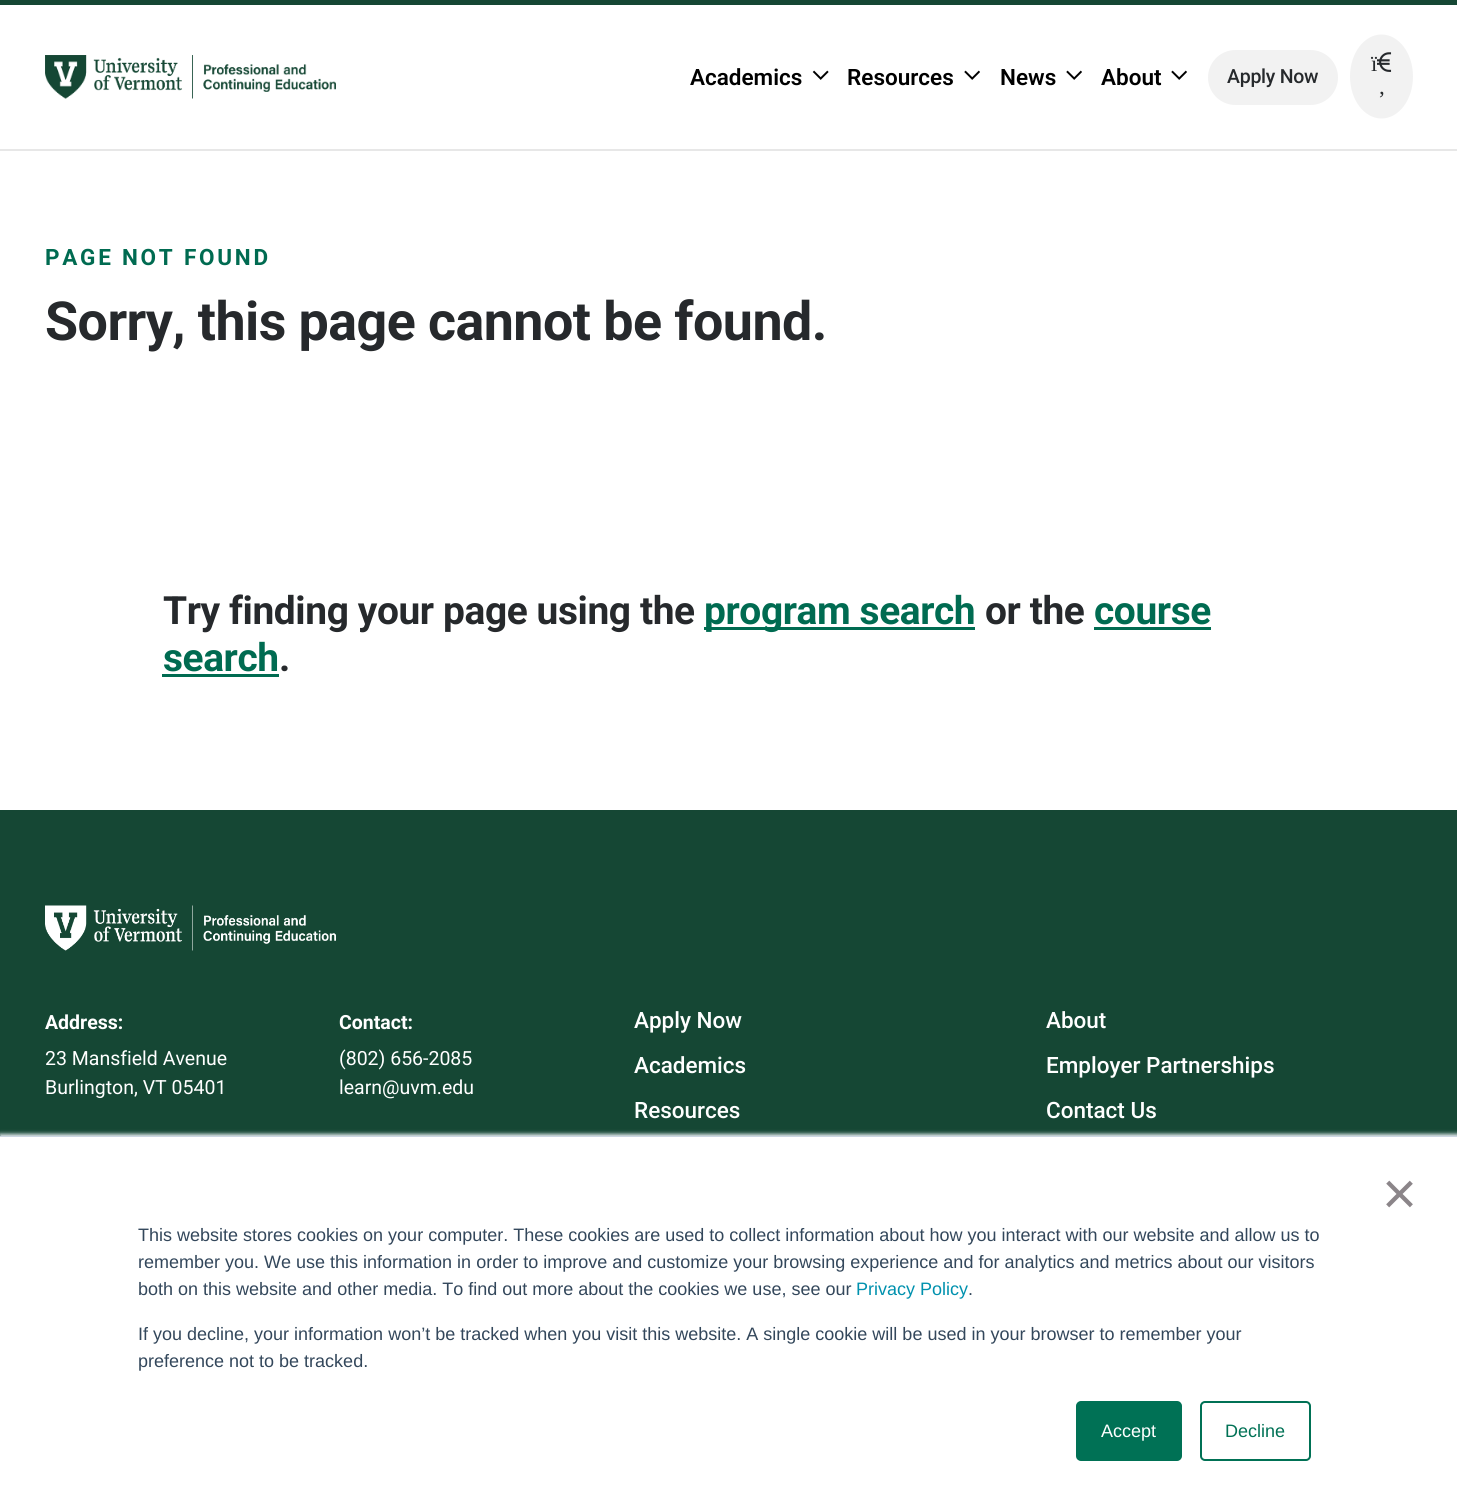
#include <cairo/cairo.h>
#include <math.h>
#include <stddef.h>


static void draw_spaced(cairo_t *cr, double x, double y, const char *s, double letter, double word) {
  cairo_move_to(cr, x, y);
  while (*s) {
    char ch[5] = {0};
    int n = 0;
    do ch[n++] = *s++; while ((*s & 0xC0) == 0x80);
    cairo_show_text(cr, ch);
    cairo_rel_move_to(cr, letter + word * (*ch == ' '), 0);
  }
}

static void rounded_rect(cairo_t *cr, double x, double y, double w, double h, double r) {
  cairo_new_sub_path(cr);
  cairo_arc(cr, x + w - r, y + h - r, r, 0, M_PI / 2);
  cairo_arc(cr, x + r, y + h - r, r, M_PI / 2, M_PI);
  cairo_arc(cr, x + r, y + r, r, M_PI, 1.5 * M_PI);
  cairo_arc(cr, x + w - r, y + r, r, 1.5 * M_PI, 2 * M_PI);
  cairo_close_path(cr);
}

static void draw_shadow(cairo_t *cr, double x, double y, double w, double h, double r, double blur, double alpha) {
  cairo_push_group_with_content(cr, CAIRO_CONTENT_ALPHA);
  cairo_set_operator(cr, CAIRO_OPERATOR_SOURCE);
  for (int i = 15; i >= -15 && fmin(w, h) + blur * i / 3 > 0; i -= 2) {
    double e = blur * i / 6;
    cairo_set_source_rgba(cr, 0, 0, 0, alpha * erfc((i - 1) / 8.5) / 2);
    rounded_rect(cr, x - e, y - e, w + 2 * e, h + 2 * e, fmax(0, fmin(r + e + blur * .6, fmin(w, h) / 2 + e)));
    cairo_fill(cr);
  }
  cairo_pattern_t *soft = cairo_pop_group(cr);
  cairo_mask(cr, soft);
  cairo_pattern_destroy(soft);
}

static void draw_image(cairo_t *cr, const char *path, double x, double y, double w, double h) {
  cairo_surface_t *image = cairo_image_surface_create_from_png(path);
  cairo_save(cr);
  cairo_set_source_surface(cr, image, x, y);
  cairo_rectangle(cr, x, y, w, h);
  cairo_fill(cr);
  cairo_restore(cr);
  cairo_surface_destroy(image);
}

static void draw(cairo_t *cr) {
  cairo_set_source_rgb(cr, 1, 1, 1);
  cairo_paint(cr);
  cairo_set_source_rgb(cr, 21 / 255.0, 71 / 255.0, 52 / 255.0);
  cairo_rectangle(cr, 0, 0, 1457, 5);
  cairo_fill(cr);
  cairo_set_source_rgb(cr, 231 / 255.0, 231 / 255.0, 231 / 255.0);
  cairo_rectangle(cr, 0, 149, 1457, 2);
  cairo_fill(cr);
  draw_image(cr, "images/1.png", 45, 55, 291, 44);
  draw_image(cr, "images/2.png", 812, 70, 17, 10);
  draw_image(cr, "images/3.png", 964, 70, 16, 10);
  draw_image(cr, "images/3.png", 1066, 70, 16, 10);
  draw_image(cr, "images/3.png", 1171, 70, 16, 10);
  cairo_set_source_rgb(cr, 242 / 255.0, 242 / 255.0, 242 / 255.0);
  rounded_rect(cr, 1208, 50, 130, 55, 27.5);
  cairo_fill(cr);
  cairo_new_path(cr);
  cairo_move_to(cr, 1381.5, 34.5);
  cairo_curve_to(cr, 1399, 34.5, 1413, 53.5, 1413, 76.5);
  cairo_curve_to(cr, 1413, 99.5, 1399, 118.5, 1381.5, 118.5);
  cairo_curve_to(cr, 1364, 118.5, 1350, 99.5, 1350, 76.5);
  cairo_curve_to(cr, 1350, 53.5, 1364, 34.5, 1381.5, 34.5);
  cairo_close_path(cr);
  cairo_fill(cr);
  draw_image(cr, "images/4.png", 1377, 52, 15, 20);
  cairo_set_source_rgb(cr, 0, 107 / 255.0, 81 / 255.0);
  cairo_rectangle(cr, 704, 627, 271, 3);
  cairo_fill(cr);
  cairo_rectangle(cr, 1094, 627, 117, 3);
  cairo_fill(cr);
  cairo_rectangle(cr, 162, 674, 117, 3);
  cairo_fill(cr);
  cairo_set_source_rgb(cr, 21 / 255.0, 71 / 255.0, 52 / 255.0);
  cairo_rectangle(cr, 0, 810, 1457, 326);
  cairo_fill(cr);
  draw_image(cr, "images/5.png", 45, 905, 291, 46);
  cairo_set_source_rgb(cr, 234 / 255.0, 240 / 255.0, 246 / 255.0);
  draw_shadow(cr, 0, 1134, 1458, 365, 0, 2, 1);
  cairo_set_source_rgb(cr, 203 / 255.0, 214 / 255.0, 226 / 255.0);
  cairo_rectangle(cr, 0, 1136, 1457, 1);
  cairo_fill(cr);
  cairo_set_source_rgb(cr, 1, 1, 1);
  cairo_rectangle(cr, 0, 1137, 1457, 362);
  cairo_fill(cr);
  cairo_set_source_rgb(cr, 0, 113 / 255.0, 85 / 255.0);
  rounded_rect(cr, 1077, 1402, 104, 58, 4);
  cairo_fill_preserve(cr);
  cairo_stroke(cr);
  rounded_rect(cr, 1201, 1402, 109, 58, 4);
  cairo_stroke(cr);
  cairo_select_font_face(cr, "Roboto SemiBold", CAIRO_FONT_SLANT_NORMAL, CAIRO_FONT_WEIGHT_NORMAL);
  cairo_set_font_size(cr, 22.5);
  cairo_set_source_rgb(cr, 0, 0, 0);
  cairo_move_to(cr, 690, 85);
  cairo_show_text(cr, "Academics");
  cairo_move_to(cr, 847, 85);
  cairo_show_text(cr, "Resources");
  cairo_move_to(cr, 1000, 85);
  cairo_show_text(cr, "News");
  cairo_move_to(cr, 1101, 85);
  cairo_show_text(cr, "About");
  cairo_select_font_face(cr, "Roboto Medium", CAIRO_FONT_SLANT_NORMAL, CAIRO_FONT_WEIGHT_NORMAL);
  cairo_set_font_size(cr, 19.5);
  cairo_set_source_rgb(cr, 38 / 255.0, 41 / 255.0, 44 / 255.0);
  draw_spaced(cr, 1227, 83, "Apply Now", -0.25, 0);
  cairo_select_font_face(cr, "Liberation Serif", CAIRO_FONT_SLANT_NORMAL, CAIRO_FONT_WEIGHT_NORMAL);
  cairo_set_font_size(cr, 22.5);
  cairo_move_to(cr, 1371, 71);
  cairo_show_text(cr, "ï");
  cairo_move_to(cr, 1378, 94);
  cairo_show_text(cr, "‚");
  cairo_select_font_face(cr, "Roboto", CAIRO_FONT_SLANT_NORMAL, CAIRO_FONT_WEIGHT_BOLD);
  cairo_set_source_rgb(cr, 0, 107 / 255.0, 81 / 255.0);
  draw_spaced(cr, 45, 265, "PAGE NOT FOUND", 2.75, 0);
  cairo_set_font_size(cr, 53.8);
  cairo_set_source_rgb(cr, 38 / 255.0, 41 / 255.0, 44 / 255.0);
  draw_spaced(cr, 45, 340, "Sorry, this page cannot be found.", -0.55, 0);
  cairo_set_font_size(cr, 38.9);
  draw_spaced(cr, 163, 624, "Try finding your page using the", -0.4, 0);
  cairo_set_source_rgb(cr, 0, 107 / 255.0, 81 / 255.0);
  draw_spaced(cr, 704, 624, "program search", -0.4, 0);
  cairo_set_source_rgb(cr, 38 / 255.0, 41 / 255.0, 44 / 255.0);
  draw_spaced(cr, 985, 624, "or the", -0.4, 0);
  cairo_set_source_rgb(cr, 0, 107 / 255.0, 81 / 255.0);
  draw_spaced(cr, 1094, 624, "course", -0.4, 0);
  draw_spaced(cr, 163, 671, "search", -0.4, 0);
  cairo_set_source_rgb(cr, 38 / 255.0, 41 / 255.0, 44 / 255.0);
  draw_spaced(cr, 279, 671, ".", -0.4, 0);
  cairo_set_font_size(cr, 19.5);
  cairo_set_source_rgb(cr, 1, 1, 1);
  cairo_move_to(cr, 45, 1029);
  cairo_show_text(cr, "Address:");
  cairo_select_font_face(cr, "Roboto", CAIRO_FONT_SLANT_NORMAL, CAIRO_FONT_WEIGHT_NORMAL);
  cairo_move_to(cr, 45, 1065);
  cairo_show_text(cr, "23 Mansfield Avenue");
  cairo_move_to(cr, 45, 1094);
  cairo_show_text(cr, "Burlington, VT 05401");
  cairo_select_font_face(cr, "Roboto", CAIRO_FONT_SLANT_NORMAL, CAIRO_FONT_WEIGHT_BOLD);
  cairo_move_to(cr, 339, 1029);
  cairo_show_text(cr, "Contact:");
  cairo_select_font_face(cr, "Roboto", CAIRO_FONT_SLANT_NORMAL, CAIRO_FONT_WEIGHT_NORMAL);
  cairo_move_to(cr, 339, 1065);
  cairo_show_text(cr, "(802) 656-2085");
  cairo_move_to(cr, 339, 1094);
  cairo_show_text(cr, "learn@uvm.edu");
  cairo_select_font_face(cr, "Roboto Medium", CAIRO_FONT_SLANT_NORMAL, CAIRO_FONT_WEIGHT_NORMAL);
  cairo_set_font_size(cr, 22.5);
  cairo_move_to(cr, 634, 1028);
  cairo_show_text(cr, "Apply Now");
  cairo_move_to(cr, 1046, 1028);
  cairo_show_text(cr, "About");
  cairo_move_to(cr, 634, 1073);
  cairo_show_text(cr, "Academics");
  cairo_move_to(cr, 1046, 1073);
  cairo_show_text(cr, "Employer Partnerships");
  cairo_move_to(cr, 634, 1118);
  cairo_show_text(cr, "Resources");
  cairo_move_to(cr, 1046, 1118);
  cairo_show_text(cr, "Contact Us");
  cairo_select_font_face(cr, "Liberation Sans", CAIRO_FONT_SLANT_NORMAL, CAIRO_FONT_WEIGHT_NORMAL);
  cairo_set_font_size(cr, 60);
  cairo_set_source_rgb(cr, 139 / 255.0, 133 / 255.0, 137 / 255.0);
  cairo_move_to(cr, 1382, 1214);
  cairo_show_text(cr, "×");
  cairo_set_font_size(cr, 18);
  cairo_set_source_rgb(cr, 51 / 255.0, 71 / 255.0, 91 / 255.0);
  cairo_move_to(cr, 138, 1241);
  cairo_show_text(cr, "This website stores cookies on your computer. These cookies are used to collect information about how you interact with our website and allow us to");
  cairo_move_to(cr, 138, 1268);
  cairo_show_text(cr, "remember you. We use this information in order to improve and customize your browsing experience and for analytics and metrics about our visitors");
  cairo_move_to(cr, 138, 1295);
  cairo_show_text(cr, "both on this website and other media. To find out more about the cookies we use, see our");
  cairo_set_source_rgb(cr, 0, 145 / 255.0, 174 / 255.0);
  cairo_move_to(cr, 856, 1295);
  cairo_show_text(cr, "Privacy Policy");
  cairo_set_source_rgb(cr, 51 / 255.0, 71 / 255.0, 91 / 255.0);
  cairo_move_to(cr, 968, 1295);
  cairo_show_text(cr, ".");
  cairo_move_to(cr, 138, 1340);
  cairo_show_text(cr, "If you decline, your information won’t be tracked when you visit this website. A single cookie will be used in your browser to remember your");
  cairo_move_to(cr, 138, 1367);
  cairo_show_text(cr, "preference not to be tracked.");
  cairo_set_source_rgb(cr, 1, 1, 1);
  cairo_move_to(cr, 1101, 1437);
  cairo_show_text(cr, "Accept");
  cairo_set_source_rgb(cr, 0, 113 / 255.0, 85 / 255.0);
  cairo_move_to(cr, 1225, 1437);
  cairo_show_text(cr, "Decline");
}

int main(void) {
  cairo_surface_t *surface = cairo_image_surface_create(CAIRO_FORMAT_RGB24, 1457, 1499);
  cairo_t *cr = cairo_create(surface);
  cairo_font_options_t *options = cairo_font_options_create();
  cairo_font_options_set_hint_metrics(options, CAIRO_HINT_METRICS_OFF);
  cairo_font_options_set_hint_style(options, CAIRO_HINT_STYLE_NONE);
  cairo_set_font_options(cr, options);
  cairo_set_miter_limit(cr, 4);
  draw(cr);
  cairo_surface_write_to_png(surface, "out.png");
  cairo_font_options_destroy(options);
  cairo_destroy(cr);
  cairo_surface_destroy(surface);
  return 0;
}
